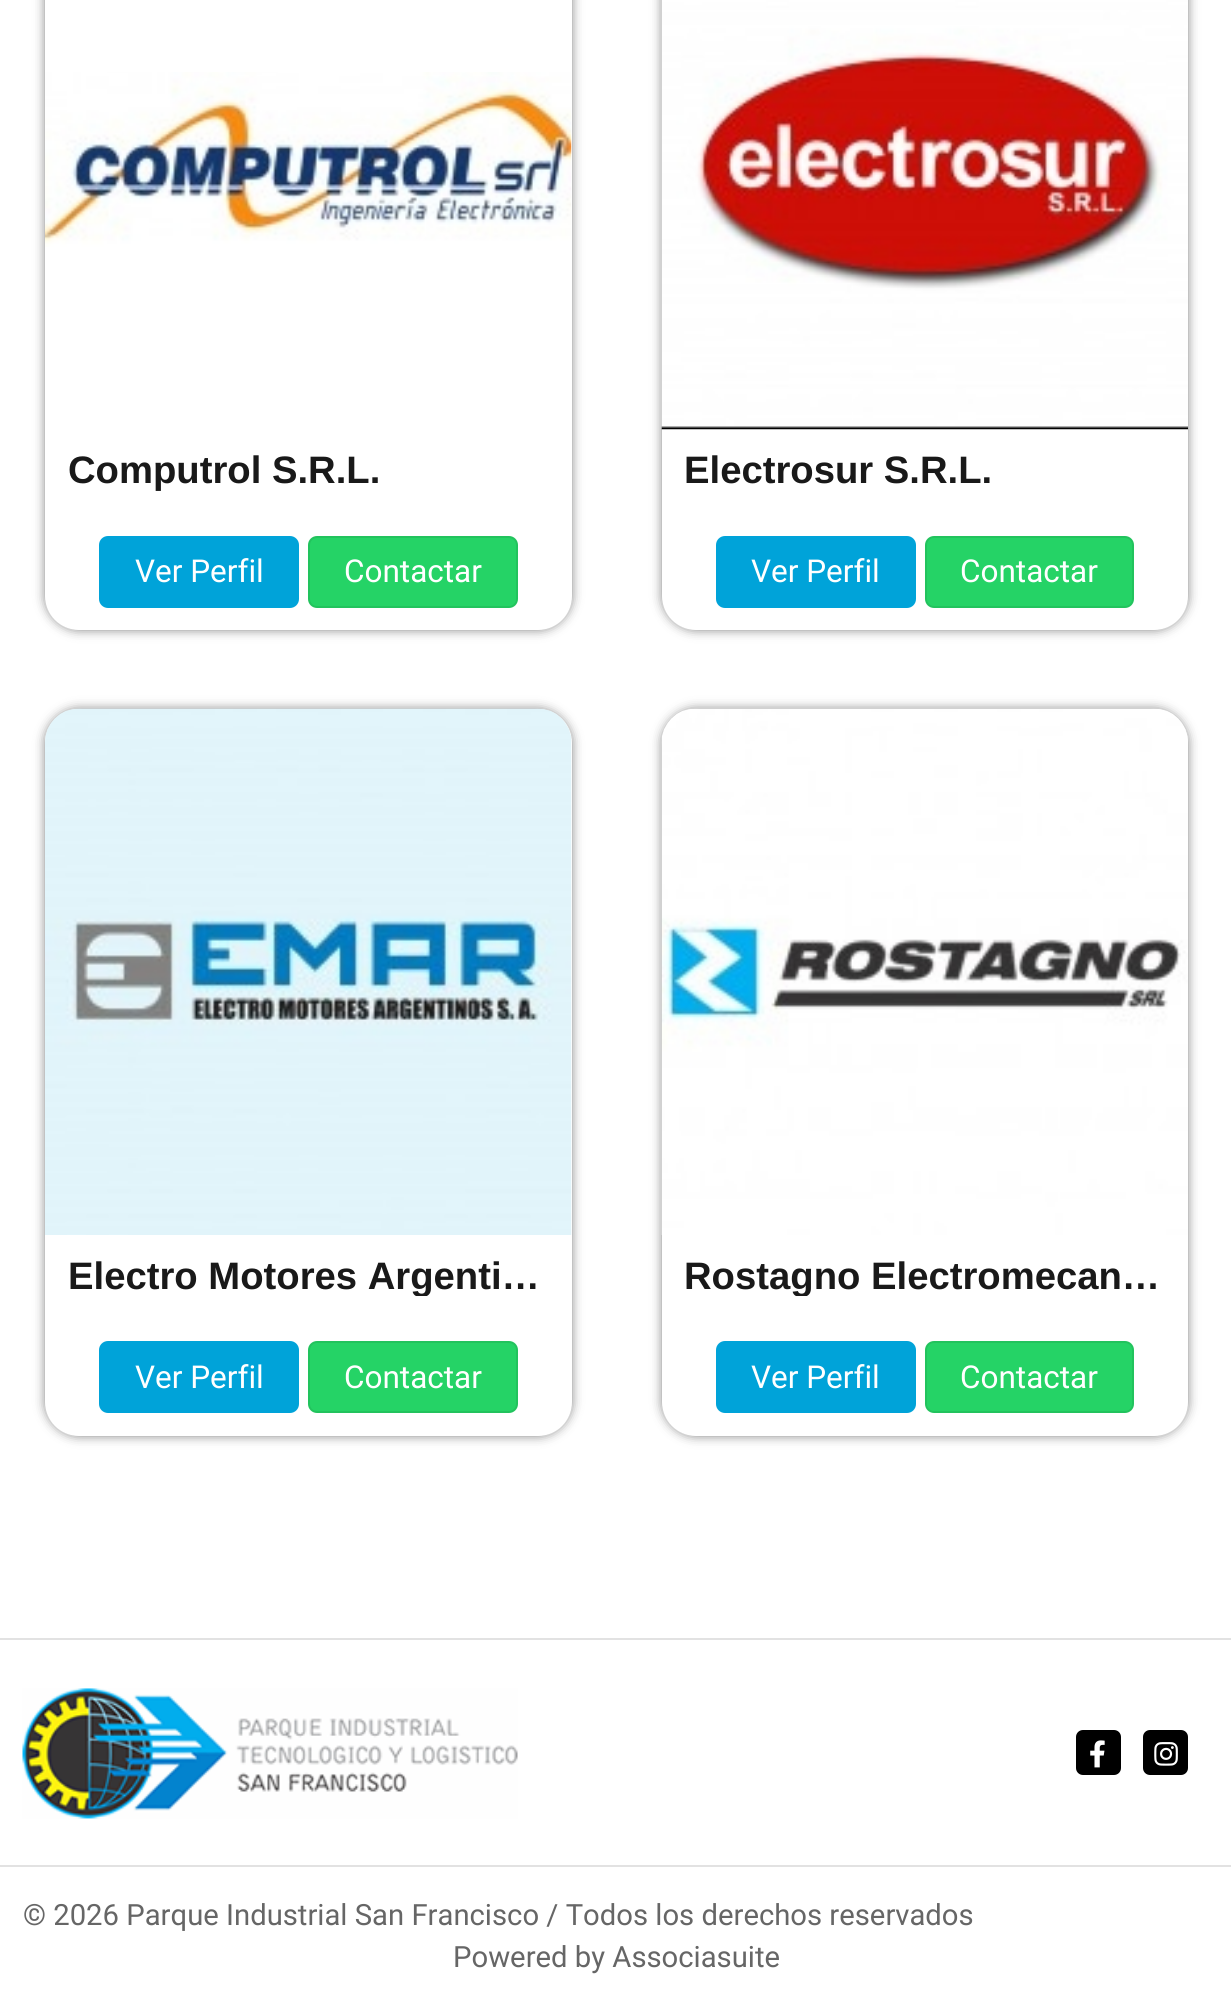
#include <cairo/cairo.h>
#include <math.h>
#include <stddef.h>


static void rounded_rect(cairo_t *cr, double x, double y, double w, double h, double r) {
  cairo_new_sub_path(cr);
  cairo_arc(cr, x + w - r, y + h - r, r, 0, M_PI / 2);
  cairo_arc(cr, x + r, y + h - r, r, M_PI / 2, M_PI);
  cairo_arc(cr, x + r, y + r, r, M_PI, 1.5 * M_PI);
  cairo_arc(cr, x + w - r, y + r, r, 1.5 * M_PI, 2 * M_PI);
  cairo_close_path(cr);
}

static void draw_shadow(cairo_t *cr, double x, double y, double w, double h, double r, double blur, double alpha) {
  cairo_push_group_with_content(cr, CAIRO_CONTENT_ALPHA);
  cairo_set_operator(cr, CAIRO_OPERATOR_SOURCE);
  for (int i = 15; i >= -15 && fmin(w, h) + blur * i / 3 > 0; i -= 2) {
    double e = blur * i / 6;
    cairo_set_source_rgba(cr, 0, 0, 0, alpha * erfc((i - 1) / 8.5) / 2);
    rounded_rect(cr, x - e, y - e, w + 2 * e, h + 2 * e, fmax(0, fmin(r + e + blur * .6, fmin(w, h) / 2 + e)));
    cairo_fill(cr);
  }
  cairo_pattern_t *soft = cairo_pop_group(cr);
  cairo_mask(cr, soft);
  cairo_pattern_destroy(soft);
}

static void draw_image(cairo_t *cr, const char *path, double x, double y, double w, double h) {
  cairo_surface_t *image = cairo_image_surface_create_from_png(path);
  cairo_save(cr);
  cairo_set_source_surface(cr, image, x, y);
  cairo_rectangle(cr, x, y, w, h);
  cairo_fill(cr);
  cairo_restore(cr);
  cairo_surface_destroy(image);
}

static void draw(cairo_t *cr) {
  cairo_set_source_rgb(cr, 1, 1, 1);
  cairo_paint(cr);
  cairo_set_source_rgb(cr, 10 / 255.0, 10 / 255.0, 10 / 255.0);
  draw_shadow(cr, 45, -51, 527, 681, 34, 5.5, 0.5);
  cairo_set_source_rgb(cr, 1, 1, 1);
  rounded_rect(cr, 45, -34, 527, 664, 34);
  cairo_fill(cr);
  draw_image(cr, "images/1.png", 45, 72, 527, 175);
  cairo_set_source_rgb(cr, 0, 163 / 255.0, 217 / 255.0);
  rounded_rect(cr, 100, 537, 198, 70, 8);
  cairo_fill_preserve(cr);
  cairo_stroke(cr);
  cairo_set_source_rgb(cr, 37 / 255.0, 211 / 255.0, 102 / 255.0);
  rounded_rect(cr, 309, 537, 208, 70, 8);
  cairo_fill_preserve(cr);
  cairo_set_source_rgb(cr, 34 / 255.0, 195 / 255.0, 93 / 255.0);
  cairo_stroke(cr);
  cairo_set_source_rgb(cr, 10 / 255.0, 10 / 255.0, 10 / 255.0);
  draw_shadow(cr, 662, -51, 526, 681, 34, 5.5, 0.5);
  cairo_set_source_rgb(cr, 1, 1, 1);
  rounded_rect(cr, 662, -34, 526, 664, 34);
  cairo_fill(cr);
  draw_image(cr, "images/2.png", 661, 0, 527, 430);
  cairo_set_source_rgb(cr, 0, 163 / 255.0, 217 / 255.0);
  rounded_rect(cr, 717, 537, 198, 70, 8);
  cairo_fill_preserve(cr);
  cairo_stroke(cr);
  cairo_set_source_rgb(cr, 37 / 255.0, 211 / 255.0, 102 / 255.0);
  rounded_rect(cr, 926, 537, 207, 70, 8);
  cairo_fill_preserve(cr);
  cairo_set_source_rgb(cr, 34 / 255.0, 195 / 255.0, 93 / 255.0);
  cairo_stroke(cr);
  cairo_set_source_rgb(cr, 10 / 255.0, 10 / 255.0, 10 / 255.0);
  draw_shadow(cr, 45, 709, 527, 727, 34, 5.5, 0.5);
  cairo_set_source_rgb(cr, 1, 1, 1);
  rounded_rect(cr, 45, 709, 527, 727, 34);
  cairo_fill(cr);
  draw_image(cr, "images/3.png", 45, 708, 527, 527);
  cairo_set_source_rgb(cr, 0, 163 / 255.0, 217 / 255.0);
  rounded_rect(cr, 100, 1342, 198, 70, 8);
  cairo_fill_preserve(cr);
  cairo_stroke(cr);
  cairo_set_source_rgb(cr, 37 / 255.0, 211 / 255.0, 102 / 255.0);
  rounded_rect(cr, 309, 1342, 208, 70, 8);
  cairo_fill_preserve(cr);
  cairo_set_source_rgb(cr, 34 / 255.0, 195 / 255.0, 93 / 255.0);
  cairo_stroke(cr);
  cairo_set_source_rgb(cr, 10 / 255.0, 10 / 255.0, 10 / 255.0);
  draw_shadow(cr, 662, 709, 526, 727, 34, 5.5, 0.5);
  cairo_set_source_rgb(cr, 1, 1, 1);
  rounded_rect(cr, 662, 709, 526, 727, 34);
  cairo_fill(cr);
  draw_image(cr, "images/4.png", 661, 708, 527, 527);
  cairo_set_source_rgb(cr, 0, 163 / 255.0, 217 / 255.0);
  rounded_rect(cr, 717, 1342, 198, 70, 8);
  cairo_fill_preserve(cr);
  cairo_stroke(cr);
  cairo_set_source_rgb(cr, 37 / 255.0, 211 / 255.0, 102 / 255.0);
  rounded_rect(cr, 926, 1342, 207, 70, 8);
  cairo_fill_preserve(cr);
  cairo_set_source_rgb(cr, 34 / 255.0, 195 / 255.0, 93 / 255.0);
  cairo_stroke(cr);
  cairo_set_source_rgb(cr, 226 / 255.0, 226 / 255.0, 226 / 255.0);
  cairo_rectangle(cr, 0, 1638, 1231, 2);
  cairo_fill(cr);
  draw_image(cr, "images/5.png", 22, 1688, 496, 131);
  cairo_set_source_rgb(cr, 0, 0, 0);
  rounded_rect(cr, 1076, 1730, 45, 45, 7);
  cairo_fill(cr);
  draw_image(cr, "images/6.png", 1090, 1740, 15, 28);
  rounded_rect(cr, 1143, 1730, 45, 45, 7);
  cairo_fill(cr);
  draw_image(cr, "images/7.png", 1154, 1742, 24, 24);
  cairo_set_source_rgb(cr, 226 / 255.0, 226 / 255.0, 226 / 255.0);
  cairo_rectangle(cr, 0, 1865, 1231, 2);
  cairo_fill(cr);
  cairo_select_font_face(cr, "Liberation Sans", CAIRO_FONT_SLANT_NORMAL, CAIRO_FONT_WEIGHT_BOLD);
  cairo_set_font_size(cr, 38.25);
  cairo_set_source_rgb(cr, 25 / 255.0, 25 / 255.0, 25 / 255.0);
  cairo_move_to(cr, 68, 483);
  cairo_show_text(cr, "Computrol S.R.L.");
  cairo_select_font_face(cr, "Roboto", CAIRO_FONT_SLANT_NORMAL, CAIRO_FONT_WEIGHT_NORMAL);
  cairo_set_font_size(cr, 31.5);
  cairo_set_source_rgb(cr, 1, 1, 1);
  cairo_move_to(cr, 135, 582);
  cairo_show_text(cr, "Ver Perfil");
  cairo_move_to(cr, 344, 582);
  cairo_show_text(cr, "Contactar");
  cairo_select_font_face(cr, "Liberation Sans", CAIRO_FONT_SLANT_NORMAL, CAIRO_FONT_WEIGHT_BOLD);
  cairo_set_font_size(cr, 38.25);
  cairo_set_source_rgb(cr, 25 / 255.0, 25 / 255.0, 25 / 255.0);
  cairo_move_to(cr, 684, 483);
  cairo_show_text(cr, "Electrosur S.R.L.");
  cairo_select_font_face(cr, "Roboto", CAIRO_FONT_SLANT_NORMAL, CAIRO_FONT_WEIGHT_NORMAL);
  cairo_set_font_size(cr, 31.5);
  cairo_set_source_rgb(cr, 1, 1, 1);
  cairo_move_to(cr, 751, 582);
  cairo_show_text(cr, "Ver Perfil");
  cairo_move_to(cr, 960, 582);
  cairo_show_text(cr, "Contactar");
  cairo_save(cr);
  cairo_rectangle(cr, 68, 1258, 481, 38);
  cairo_clip(cr);
  cairo_select_font_face(cr, "Liberation Sans", CAIRO_FONT_SLANT_NORMAL, CAIRO_FONT_WEIGHT_BOLD);
  cairo_set_font_size(cr, 38.25);
  cairo_set_source_rgb(cr, 25 / 255.0, 25 / 255.0, 25 / 255.0);
  cairo_move_to(cr, 68, 1289);
  cairo_show_text(cr, "Electro Motores Argenti…");
  cairo_restore(cr);
  cairo_move_to(cr, 135, 1388);
  cairo_show_text(cr, "Ver Perfil");
  cairo_move_to(cr, 344, 1388);
  cairo_show_text(cr, "Contactar");
  cairo_save(cr);
  cairo_rectangle(cr, 684, 1258, 482, 38);
  cairo_clip(cr);
  cairo_select_font_face(cr, "Liberation Sans", CAIRO_FONT_SLANT_NORMAL, CAIRO_FONT_WEIGHT_BOLD);
  cairo_set_font_size(cr, 38.25);
  cairo_set_source_rgb(cr, 25 / 255.0, 25 / 255.0, 25 / 255.0);
  cairo_move_to(cr, 684, 1289);
  cairo_show_text(cr, "Rostagno Electromecan…");
  cairo_restore(cr);
  cairo_move_to(cr, 751, 1388);
  cairo_show_text(cr, "Ver Perfil");
  cairo_move_to(cr, 960, 1388);
  cairo_show_text(cr, "Contactar");
  cairo_set_font_size(cr, 29.25);
  cairo_set_source_rgb(cr, 102 / 255.0, 102 / 255.0, 102 / 255.0);
  cairo_move_to(cr, 23, 1925);
  cairo_show_text(cr, "© 2026 Parque Industrial San Francisco / Todos los derechos reservados");
  cairo_move_to(cr, 453, 1967);
  cairo_show_text(cr, "Powered by Associasuite");
}

int main(void) {
  cairo_surface_t *surface = cairo_image_surface_create(CAIRO_FORMAT_RGB24, 1231, 2002);
  cairo_t *cr = cairo_create(surface);
  cairo_font_options_t *options = cairo_font_options_create();
  cairo_font_options_set_hint_metrics(options, CAIRO_HINT_METRICS_OFF);
  cairo_font_options_set_hint_style(options, CAIRO_HINT_STYLE_NONE);
  cairo_set_font_options(cr, options);
  cairo_set_miter_limit(cr, 4);
  draw(cr);
  cairo_surface_write_to_png(surface, "out.png");
  cairo_font_options_destroy(options);
  cairo_destroy(cr);
  cairo_surface_destroy(surface);
  return 0;
}
